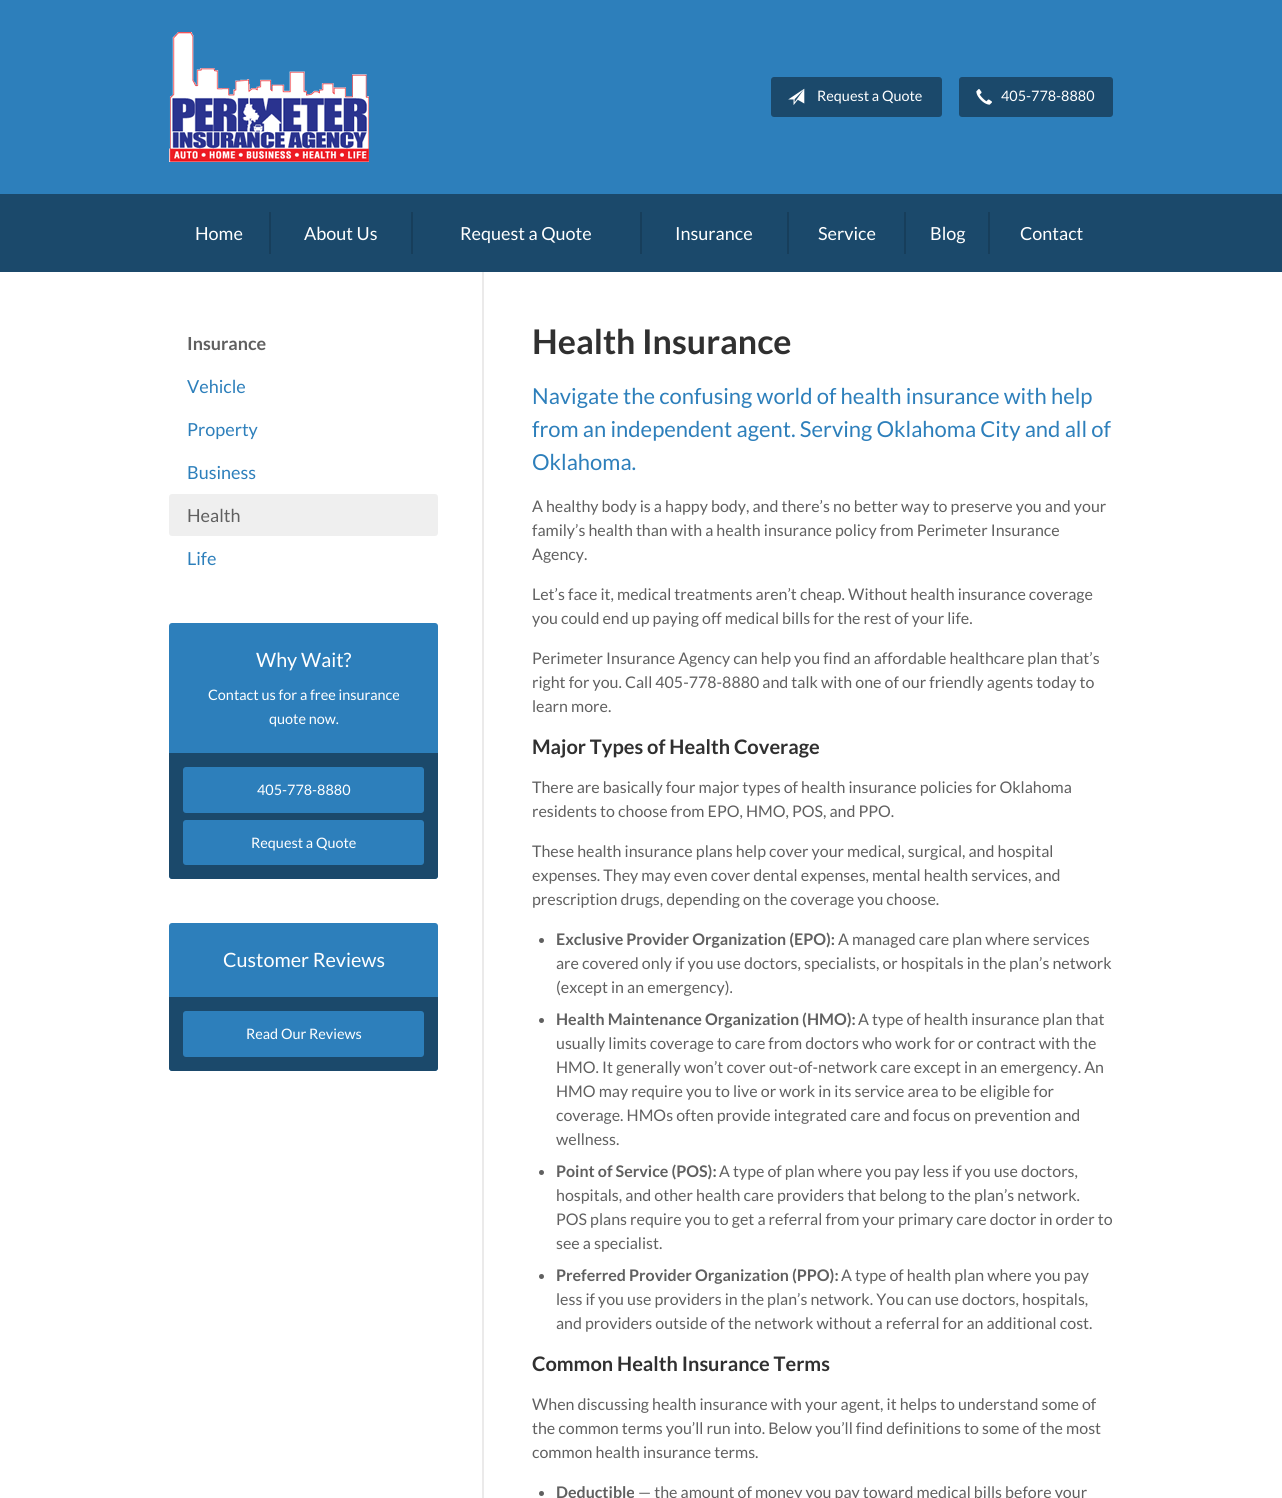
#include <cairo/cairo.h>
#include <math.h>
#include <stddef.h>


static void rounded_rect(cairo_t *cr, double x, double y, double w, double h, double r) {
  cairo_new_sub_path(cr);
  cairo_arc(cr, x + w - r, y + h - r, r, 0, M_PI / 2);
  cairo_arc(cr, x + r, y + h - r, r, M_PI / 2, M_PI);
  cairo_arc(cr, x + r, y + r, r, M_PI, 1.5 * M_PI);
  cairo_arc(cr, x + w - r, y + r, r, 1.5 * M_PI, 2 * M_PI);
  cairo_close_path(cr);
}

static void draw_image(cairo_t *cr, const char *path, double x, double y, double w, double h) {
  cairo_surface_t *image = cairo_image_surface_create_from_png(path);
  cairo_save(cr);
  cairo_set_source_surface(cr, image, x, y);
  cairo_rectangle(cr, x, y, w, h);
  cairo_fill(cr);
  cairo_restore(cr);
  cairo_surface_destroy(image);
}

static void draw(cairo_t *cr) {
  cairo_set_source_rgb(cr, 45 / 255.0, 127 / 255.0, 187 / 255.0);
  cairo_paint(cr);
  draw_image(cr, "images/1.png", 169, 32, 200, 130);
  cairo_set_source_rgb(cr, 27 / 255.0, 73 / 255.0, 107 / 255.0);
  rounded_rect(cr, 771, 77, 171, 40, 3);
  cairo_fill(cr);
  draw_image(cr, "images/2.png", 788, 88, 17, 17);
  rounded_rect(cr, 959, 77, 154, 40, 3);
  cairo_fill(cr);
  draw_image(cr, "images/3.png", 976, 89, 16, 16);
  cairo_rectangle(cr, 0, 194, 1282, 78);
  cairo_fill(cr);
  cairo_set_source_rgb(cr, 23 / 255.0, 62 / 255.0, 91 / 255.0);
  cairo_rectangle(cr, 269, 212, 2, 42);
  cairo_fill(cr);
  cairo_rectangle(cr, 411, 212, 2, 42);
  cairo_fill(cr);
  cairo_rectangle(cr, 640, 212, 2, 42);
  cairo_fill(cr);
  cairo_rectangle(cr, 787, 212, 2, 42);
  cairo_fill(cr);
  cairo_rectangle(cr, 904, 212, 2, 42);
  cairo_fill(cr);
  cairo_rectangle(cr, 988, 212, 2, 42);
  cairo_fill(cr);
  cairo_set_source_rgb(cr, 1, 1, 1);
  cairo_rectangle(cr, 0, 272, 1282, 1226);
  cairo_fill(cr);
  cairo_set_source_rgb(cr, 235 / 255.0, 234 / 255.0, 234 / 255.0);
  cairo_rectangle(cr, 482, 272, 2, 1226);
  cairo_fill(cr);
  cairo_set_source_rgb(cr, 239 / 255.0, 239 / 255.0, 239 / 255.0);
  rounded_rect(cr, 169, 494, 269, 42, 3);
  cairo_fill(cr);
  cairo_set_source_rgb(cr, 45 / 255.0, 127 / 255.0, 187 / 255.0);
  rounded_rect(cr, 169, 623, 269, 256, 3);
  cairo_fill(cr);
  cairo_set_source_rgb(cr, 27 / 255.0, 73 / 255.0, 107 / 255.0);
  cairo_new_path(cr);
  cairo_move_to(cr, 169, 753);
  cairo_line_to(cr, 438, 753);
  cairo_line_to(cr, 438, 876);
  cairo_curve_to(cr, 438, 877.5, 436.5, 879, 435, 879);
  cairo_line_to(cr, 172, 879);
  cairo_curve_to(cr, 170.5, 879, 169, 877.5, 169, 876);
  cairo_close_path(cr);
  cairo_fill(cr);
  cairo_set_source_rgb(cr, 45 / 255.0, 127 / 255.0, 187 / 255.0);
  rounded_rect(cr, 183, 767, 241, 46, 3);
  cairo_fill(cr);
  rounded_rect(cr, 183, 820, 241, 45, 3);
  cairo_fill(cr);
  rounded_rect(cr, 169, 923, 269, 148, 3);
  cairo_fill(cr);
  cairo_set_source_rgb(cr, 27 / 255.0, 73 / 255.0, 107 / 255.0);
  cairo_new_path(cr);
  cairo_move_to(cr, 169, 997);
  cairo_line_to(cr, 438, 997);
  cairo_line_to(cr, 438, 1068);
  cairo_curve_to(cr, 438, 1069.5, 436.5, 1071, 435, 1071);
  cairo_line_to(cr, 172, 1071);
  cairo_curve_to(cr, 170.5, 1071, 169, 1069.5, 169, 1068);
  cairo_close_path(cr);
  cairo_fill(cr);
  cairo_set_source_rgb(cr, 45 / 255.0, 127 / 255.0, 187 / 255.0);
  rounded_rect(cr, 183, 1011, 241, 46, 3);
  cairo_fill(cr);
  cairo_set_source_rgb(cr, 96 / 255.0, 96 / 255.0, 96 / 255.0);
  cairo_arc(cr, 541.5, 940.5, 2.5, 0, 2 * M_PI);
  cairo_fill(cr);
  cairo_arc(cr, 541.5, 1020.5, 2.5, 0, 2 * M_PI);
  cairo_fill(cr);
  cairo_arc(cr, 541.5, 1172.5, 2.5, 0, 2 * M_PI);
  cairo_fill(cr);
  cairo_arc(cr, 541.5, 1276.5, 2.5, 0, 2 * M_PI);
  cairo_fill(cr);
  cairo_arc(cr, 541.5, 1493.5, 2.5, 0, 2 * M_PI);
  cairo_fill(cr);
  cairo_select_font_face(cr, "Lato", CAIRO_FONT_SLANT_NORMAL, CAIRO_FONT_WEIGHT_NORMAL);
  cairo_set_font_size(cr, 14.4);
  cairo_set_source_rgb(cr, 1, 1, 1);
  cairo_move_to(cr, 817, 101);
  cairo_show_text(cr, "Request a Quote");
  cairo_move_to(cr, 1001, 101);
  cairo_show_text(cr, "405-778-8880");
  cairo_set_font_size(cr, 18);
  cairo_move_to(cr, 195, 240);
  cairo_show_text(cr, "Home");
  cairo_move_to(cr, 304, 240);
  cairo_show_text(cr, "About Us");
  cairo_move_to(cr, 460, 240);
  cairo_show_text(cr, "Request a Quote");
  cairo_move_to(cr, 675, 240);
  cairo_show_text(cr, "Insurance");
  cairo_move_to(cr, 818, 240);
  cairo_show_text(cr, "Service");
  cairo_move_to(cr, 930, 240);
  cairo_show_text(cr, "Blog");
  cairo_move_to(cr, 1020, 240);
  cairo_show_text(cr, "Contact");
  cairo_select_font_face(cr, "Lato", CAIRO_FONT_SLANT_NORMAL, CAIRO_FONT_WEIGHT_BOLD);
  cairo_set_source_rgb(cr, 96 / 255.0, 96 / 255.0, 96 / 255.0);
  cairo_move_to(cr, 187, 350);
  cairo_show_text(cr, "Insurance");
  cairo_select_font_face(cr, "Lato", CAIRO_FONT_SLANT_NORMAL, CAIRO_FONT_WEIGHT_NORMAL);
  cairo_set_source_rgb(cr, 45 / 255.0, 127 / 255.0, 187 / 255.0);
  cairo_move_to(cr, 187, 393);
  cairo_show_text(cr, "Vehicle");
  cairo_move_to(cr, 187, 436);
  cairo_show_text(cr, "Property");
  cairo_move_to(cr, 187, 479);
  cairo_show_text(cr, "Business");
  cairo_set_source_rgb(cr, 96 / 255.0, 96 / 255.0, 96 / 255.0);
  cairo_move_to(cr, 187, 522);
  cairo_show_text(cr, "Health");
  cairo_set_source_rgb(cr, 45 / 255.0, 127 / 255.0, 187 / 255.0);
  cairo_move_to(cr, 187, 565);
  cairo_show_text(cr, "Life");
  cairo_set_font_size(cr, 19.75);
  cairo_set_source_rgb(cr, 1, 1, 1);
  cairo_move_to(cr, 256, 667);
  cairo_show_text(cr, "Why Wait?");
  cairo_set_font_size(cr, 14.4);
  cairo_move_to(cr, 208, 700);
  cairo_show_text(cr, "Contact us for a free insurance");
  cairo_move_to(cr, 269, 724);
  cairo_show_text(cr, "quote now.");
  cairo_move_to(cr, 257, 795);
  cairo_show_text(cr, "405-778-8880");
  cairo_move_to(cr, 251, 848);
  cairo_show_text(cr, "Request a Quote");
  cairo_set_font_size(cr, 19.75);
  cairo_move_to(cr, 223, 967);
  cairo_show_text(cr, "Customer Reviews");
  cairo_set_font_size(cr, 14.4);
  cairo_move_to(cr, 246, 1039);
  cairo_show_text(cr, "Read Our Reviews");
  cairo_select_font_face(cr, "Lato", CAIRO_FONT_SLANT_NORMAL, CAIRO_FONT_WEIGHT_BOLD);
  cairo_set_font_size(cr, 34);
  cairo_set_source_rgb(cr, 48 / 255.0, 48 / 255.0, 48 / 255.0);
  cairo_move_to(cr, 532, 354);
  cairo_show_text(cr, "Health Insurance");
  cairo_select_font_face(cr, "Lato", CAIRO_FONT_SLANT_NORMAL, CAIRO_FONT_WEIGHT_NORMAL);
  cairo_set_font_size(cr, 22);
  cairo_set_source_rgb(cr, 45 / 255.0, 127 / 255.0, 187 / 255.0);
  cairo_move_to(cr, 532, 404);
  cairo_show_text(cr, "Navigate the confusing world of health insurance with help");
  cairo_move_to(cr, 532, 437);
  cairo_show_text(cr, "from an independent agent. Serving Oklahoma City and all of");
  cairo_move_to(cr, 532, 470);
  cairo_show_text(cr, "Oklahoma.");
  cairo_set_font_size(cr, 16);
  cairo_set_source_rgb(cr, 96 / 255.0, 96 / 255.0, 96 / 255.0);
  cairo_move_to(cr, 532, 512);
  cairo_show_text(cr, "A healthy body is a happy body, and there’s no better way to preserve you and your");
  cairo_move_to(cr, 532, 536);
  cairo_show_text(cr, "family’s health than with a health insurance policy from Perimeter Insurance");
  cairo_move_to(cr, 532, 560);
  cairo_show_text(cr, "Agency.");
  cairo_move_to(cr, 532, 600);
  cairo_show_text(cr, "Let’s face it, medical treatments aren’t cheap. Without health insurance coverage");
  cairo_move_to(cr, 532, 624);
  cairo_show_text(cr, "you could end up paying off medical bills for the rest of your life.");
  cairo_move_to(cr, 532, 664);
  cairo_show_text(cr, "Perimeter Insurance Agency can help you find an affordable healthcare plan that’s");
  cairo_move_to(cr, 532, 688);
  cairo_show_text(cr, "right for you. Call 405-778-8880 and talk with one of our friendly agents today to");
  cairo_move_to(cr, 532, 712);
  cairo_show_text(cr, "learn more.");
  cairo_select_font_face(cr, "Lato", CAIRO_FONT_SLANT_NORMAL, CAIRO_FONT_WEIGHT_BOLD);
  cairo_set_font_size(cr, 20);
  cairo_set_source_rgb(cr, 48 / 255.0, 48 / 255.0, 48 / 255.0);
  cairo_move_to(cr, 532, 754);
  cairo_show_text(cr, "Major Types of Health Coverage");
  cairo_select_font_face(cr, "Lato", CAIRO_FONT_SLANT_NORMAL, CAIRO_FONT_WEIGHT_NORMAL);
  cairo_set_font_size(cr, 16);
  cairo_set_source_rgb(cr, 96 / 255.0, 96 / 255.0, 96 / 255.0);
  cairo_move_to(cr, 532, 793);
  cairo_show_text(cr, "There are basically four major types of health insurance policies for Oklahoma");
  cairo_move_to(cr, 532, 817);
  cairo_show_text(cr, "residents to choose from EPO, HMO, POS, and PPO.");
  cairo_move_to(cr, 532, 857);
  cairo_show_text(cr, "These health insurance plans help cover your medical, surgical, and hospital");
  cairo_move_to(cr, 532, 881);
  cairo_show_text(cr, "expenses. They may even cover dental expenses, mental health services, and");
  cairo_move_to(cr, 532, 905);
  cairo_show_text(cr, "prescription drugs, depending on the coverage you choose.");
  cairo_select_font_face(cr, "Lato", CAIRO_FONT_SLANT_NORMAL, CAIRO_FONT_WEIGHT_BOLD);
  cairo_move_to(cr, 556, 945);
  cairo_show_text(cr, "Exclusive Provider Organization (EPO):");
  cairo_select_font_face(cr, "Lato", CAIRO_FONT_SLANT_NORMAL, CAIRO_FONT_WEIGHT_NORMAL);
  cairo_move_to(cr, 838, 945);
  cairo_show_text(cr, "A managed care plan where services");
  cairo_move_to(cr, 556, 969);
  cairo_show_text(cr, "are covered only if you use doctors, specialists, or hospitals in the plan’s network");
  cairo_move_to(cr, 556, 993);
  cairo_show_text(cr, "(except in an emergency).");
  cairo_select_font_face(cr, "Lato", CAIRO_FONT_SLANT_NORMAL, CAIRO_FONT_WEIGHT_BOLD);
  cairo_move_to(cr, 556, 1025);
  cairo_show_text(cr, "Health Maintenance Organization (HMO):");
  cairo_select_font_face(cr, "Lato", CAIRO_FONT_SLANT_NORMAL, CAIRO_FONT_WEIGHT_NORMAL);
  cairo_move_to(cr, 858, 1025);
  cairo_show_text(cr, "A type of health insurance plan that");
  cairo_move_to(cr, 556, 1049);
  cairo_show_text(cr, "usually limits coverage to care from doctors who work for or contract with the");
  cairo_move_to(cr, 556, 1073);
  cairo_show_text(cr, "HMO. It generally won’t cover out-of-network care except in an emergency. An");
  cairo_move_to(cr, 556, 1097);
  cairo_show_text(cr, "HMO may require you to live or work in its service area to be eligible for");
  cairo_move_to(cr, 556, 1121);
  cairo_show_text(cr, "coverage. HMOs often provide integrated care and focus on prevention and");
  cairo_move_to(cr, 556, 1145);
  cairo_show_text(cr, "wellness.");
  cairo_select_font_face(cr, "Lato", CAIRO_FONT_SLANT_NORMAL, CAIRO_FONT_WEIGHT_BOLD);
  cairo_move_to(cr, 556, 1177);
  cairo_show_text(cr, "Point of Service (POS):");
  cairo_select_font_face(cr, "Lato", CAIRO_FONT_SLANT_NORMAL, CAIRO_FONT_WEIGHT_NORMAL);
  cairo_move_to(cr, 719, 1177);
  cairo_show_text(cr, "A type of plan where you pay less if you use doctors,");
  cairo_move_to(cr, 556, 1201);
  cairo_show_text(cr, "hospitals, and other health care providers that belong to the plan’s network.");
  cairo_move_to(cr, 556, 1225);
  cairo_show_text(cr, "POS plans require you to get a referral from your primary care doctor in order to");
  cairo_move_to(cr, 556, 1249);
  cairo_show_text(cr, "see a specialist.");
  cairo_select_font_face(cr, "Lato", CAIRO_FONT_SLANT_NORMAL, CAIRO_FONT_WEIGHT_BOLD);
  cairo_move_to(cr, 556, 1281);
  cairo_show_text(cr, "Preferred Provider Organization (PPO):");
  cairo_select_font_face(cr, "Lato", CAIRO_FONT_SLANT_NORMAL, CAIRO_FONT_WEIGHT_NORMAL);
  cairo_move_to(cr, 841, 1281);
  cairo_show_text(cr, "A type of health plan where you pay");
  cairo_move_to(cr, 556, 1305);
  cairo_show_text(cr, "less if you use providers in the plan’s network. You can use doctors, hospitals,");
  cairo_move_to(cr, 556, 1329);
  cairo_show_text(cr, "and providers outside of the network without a referral for an additional cost.");
  cairo_select_font_face(cr, "Lato", CAIRO_FONT_SLANT_NORMAL, CAIRO_FONT_WEIGHT_BOLD);
  cairo_set_font_size(cr, 20);
  cairo_set_source_rgb(cr, 48 / 255.0, 48 / 255.0, 48 / 255.0);
  cairo_move_to(cr, 532, 1371);
  cairo_show_text(cr, "Common Health Insurance Terms");
  cairo_select_font_face(cr, "Lato", CAIRO_FONT_SLANT_NORMAL, CAIRO_FONT_WEIGHT_NORMAL);
  cairo_set_font_size(cr, 16);
  cairo_set_source_rgb(cr, 96 / 255.0, 96 / 255.0, 96 / 255.0);
  cairo_move_to(cr, 532, 1410);
  cairo_show_text(cr, "When discussing health insurance with your agent, it helps to understand some of");
  cairo_move_to(cr, 532, 1434);
  cairo_show_text(cr, "the common terms you’ll run into. Below you’ll find definitions to some of the most");
  cairo_move_to(cr, 532, 1458);
  cairo_show_text(cr, "common health insurance terms.");
  cairo_select_font_face(cr, "Lato", CAIRO_FONT_SLANT_NORMAL, CAIRO_FONT_WEIGHT_BOLD);
  cairo_move_to(cr, 556, 1498);
  cairo_show_text(cr, "Deductible");
  cairo_select_font_face(cr, "Lato", CAIRO_FONT_SLANT_NORMAL, CAIRO_FONT_WEIGHT_NORMAL);
  cairo_move_to(cr, 638, 1498);
  cairo_show_text(cr, "— the amount of money you pay toward medical bills before your");
}

int main(void) {
  cairo_surface_t *surface = cairo_image_surface_create(CAIRO_FORMAT_RGB24, 1282, 1498);
  cairo_t *cr = cairo_create(surface);
  cairo_font_options_t *options = cairo_font_options_create();
  cairo_font_options_set_hint_metrics(options, CAIRO_HINT_METRICS_OFF);
  cairo_font_options_set_hint_style(options, CAIRO_HINT_STYLE_NONE);
  cairo_set_font_options(cr, options);
  cairo_set_miter_limit(cr, 4);
  draw(cr);
  cairo_surface_write_to_png(surface, "out.png");
  cairo_font_options_destroy(options);
  cairo_destroy(cr);
  cairo_surface_destroy(surface);
  return 0;
}
